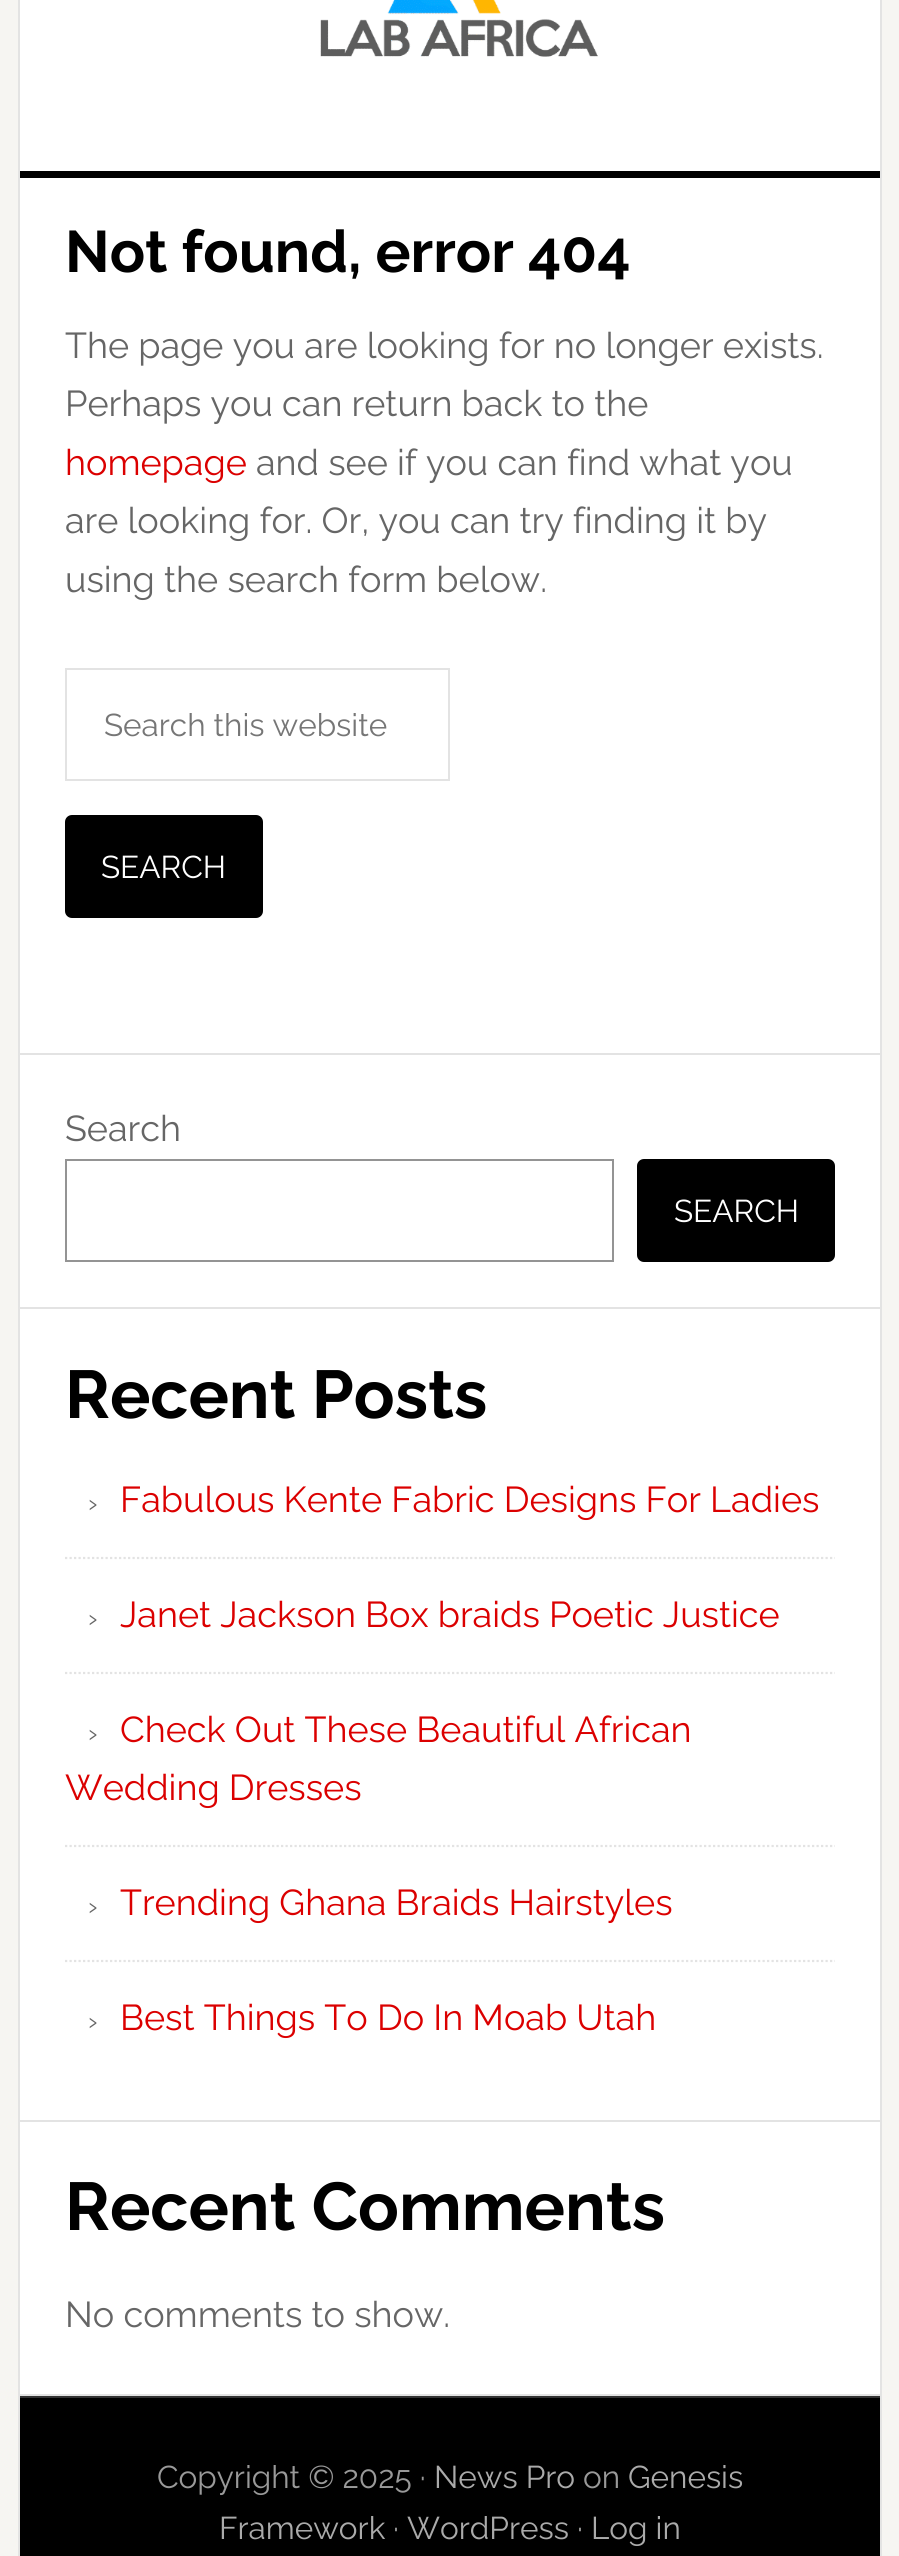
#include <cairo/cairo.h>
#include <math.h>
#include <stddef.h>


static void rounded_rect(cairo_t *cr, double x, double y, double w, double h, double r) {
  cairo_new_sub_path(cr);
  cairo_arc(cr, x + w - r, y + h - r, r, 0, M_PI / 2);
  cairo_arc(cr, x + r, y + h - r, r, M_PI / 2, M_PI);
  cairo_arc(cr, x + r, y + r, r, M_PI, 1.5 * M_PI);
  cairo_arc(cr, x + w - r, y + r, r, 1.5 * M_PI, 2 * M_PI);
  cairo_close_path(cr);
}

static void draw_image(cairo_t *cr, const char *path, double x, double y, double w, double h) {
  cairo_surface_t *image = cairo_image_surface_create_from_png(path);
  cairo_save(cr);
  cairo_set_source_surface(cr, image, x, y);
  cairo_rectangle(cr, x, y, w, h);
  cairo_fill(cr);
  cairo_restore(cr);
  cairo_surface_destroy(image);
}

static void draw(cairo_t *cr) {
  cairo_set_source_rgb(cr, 246 / 255.0, 245 / 255.0, 242 / 255.0);
  cairo_paint(cr);
  cairo_set_source_rgb(cr, 1, 1, 1);
  cairo_rectangle(cr, 20, 0, 860, 2394);
  cairo_fill(cr);
  cairo_rectangle(cr, 19, -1, 862, 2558);
  cairo_set_source_rgb(cr, 227 / 255.0, 227 / 255.0, 227 / 255.0);
  cairo_stroke(cr);
  cairo_set_source_rgb(cr, 0, 0, 0);
  cairo_rectangle(cr, 20, 171, 860, 7);
  cairo_fill(cr);
  draw_image(cr, "images/1.png", 320, 0, 278, 57);
  cairo_set_source_rgb(cr, 227 / 255.0, 227 / 255.0, 227 / 255.0);
  cairo_rectangle(cr, 20, 1053, 860, 2);
  cairo_fill(cr);
  cairo_rectangle(cr, 66, 669, 383, 111);
  cairo_stroke(cr);
  cairo_set_source_rgb(cr, 0, 0, 0);
  rounded_rect(cr, 65, 815, 198, 103, 7);
  cairo_fill(cr);
  cairo_set_source_rgb(cr, 227 / 255.0, 227 / 255.0, 227 / 255.0);
  cairo_rectangle(cr, 20, 1307, 860, 2);
  cairo_fill(cr);
  cairo_rectangle(cr, 66, 1160, 547, 101);
  cairo_set_source_rgb(cr, 148 / 255.0, 148 / 255.0, 148 / 255.0);
  cairo_stroke(cr);
  cairo_set_source_rgb(cr, 0, 0, 0);
  rounded_rect(cr, 637, 1159, 198, 103, 7);
  cairo_fill(cr);
  cairo_set_source_rgb(cr, 227 / 255.0, 227 / 255.0, 227 / 255.0);
  cairo_rectangle(cr, 20, 2120, 860, 2);
  cairo_fill(cr);
  cairo_new_path(cr);
  cairo_move_to(cr, 65, 1558);
  cairo_line_to(cr, 835, 1558);
  cairo_set_line_width(cr, 2.2);
  cairo_set_dash(cr, (double[]){2.25, 2.25}, 2, 0);
  cairo_stroke(cr);
  cairo_new_path(cr);
  cairo_move_to(cr, 65, 1673);
  cairo_line_to(cr, 835, 1673);
  cairo_stroke(cr);
  cairo_new_path(cr);
  cairo_move_to(cr, 65, 1846);
  cairo_line_to(cr, 835, 1846);
  cairo_stroke(cr);
  cairo_new_path(cr);
  cairo_move_to(cr, 65, 1961);
  cairo_line_to(cr, 835, 1961);
  cairo_stroke(cr);
  cairo_rectangle(cr, 20, 2394, 860, 2);
  cairo_fill(cr);
  cairo_set_source_rgb(cr, 0, 0, 0);
  cairo_rectangle(cr, 20, 2398, 860, 158);
  cairo_fill(cr);
  cairo_set_source_rgb(cr, 51 / 255.0, 51 / 255.0, 51 / 255.0);
  cairo_rectangle(cr, 20, 2396, 860, 2);
  cairo_fill(cr);
  cairo_select_font_face(cr, "Raleway", CAIRO_FONT_SLANT_NORMAL, CAIRO_FONT_WEIGHT_BOLD);
  cairo_set_font_size(cr, 58.5);
  cairo_set_source_rgb(cr, 0, 0, 0);
  cairo_move_to(cr, 65, 272);
  cairo_show_text(cr, "Not found, error 404");
  cairo_select_font_face(cr, "Raleway", CAIRO_FONT_SLANT_NORMAL, CAIRO_FONT_WEIGHT_NORMAL);
  cairo_set_font_size(cr, 36);
  cairo_set_source_rgb(cr, 102 / 255.0, 102 / 255.0, 102 / 255.0);
  cairo_move_to(cr, 65, 358);
  cairo_show_text(cr, "The page you are looking for no longer exists.");
  cairo_move_to(cr, 65, 416);
  cairo_show_text(cr, "Perhaps you can return back to the");
  cairo_set_source_rgb(cr, 219 / 255.0, 0, 0);
  cairo_move_to(cr, 65, 475);
  cairo_show_text(cr, "homepage");
  cairo_set_source_rgb(cr, 102 / 255.0, 102 / 255.0, 102 / 255.0);
  cairo_move_to(cr, 256, 475);
  cairo_show_text(cr, "and see if you can find what you");
  cairo_move_to(cr, 65, 533);
  cairo_show_text(cr, "are looking for. Or, you can try finding it by");
  cairo_move_to(cr, 65, 592);
  cairo_show_text(cr, "using the search form below.");
  cairo_set_font_size(cr, 31.5);
  cairo_set_source_rgb(cr, 118 / 255.0, 118 / 255.0, 118 / 255.0);
  cairo_move_to(cr, 104, 736);
  cairo_show_text(cr, "Search this website");
  cairo_set_source_rgb(cr, 1, 1, 1);
  cairo_move_to(cr, 101, 878);
  cairo_show_text(cr, "SEARCH");
  cairo_set_font_size(cr, 36);
  cairo_set_source_rgb(cr, 102 / 255.0, 102 / 255.0, 102 / 255.0);
  cairo_move_to(cr, 65, 1141);
  cairo_show_text(cr, "Search");
  cairo_set_font_size(cr, 31.5);
  cairo_set_source_rgb(cr, 1, 1, 1);
  cairo_move_to(cr, 674, 1222);
  cairo_show_text(cr, "SEARCH");
  cairo_select_font_face(cr, "Raleway", CAIRO_FONT_SLANT_NORMAL, CAIRO_FONT_WEIGHT_BOLD);
  cairo_set_font_size(cr, 67.5);
  cairo_set_source_rgb(cr, 0, 0, 0);
  cairo_move_to(cr, 65, 1418);
  cairo_show_text(cr, "Recent Posts");
  cairo_select_font_face(cr, "Raleway", CAIRO_FONT_SLANT_NORMAL, CAIRO_FONT_WEIGHT_NORMAL);
  cairo_set_font_size(cr, 27);
  cairo_set_source_rgb(cr, 102 / 255.0, 102 / 255.0, 102 / 255.0);
  cairo_move_to(cr, 88, 1512);
  cairo_show_text(cr, "›");
  cairo_set_font_size(cr, 36);
  cairo_set_source_rgb(cr, 219 / 255.0, 0, 0);
  cairo_move_to(cr, 120, 1512);
  cairo_show_text(cr, "Fabulous Kente Fabric Designs For Ladies");
  cairo_set_font_size(cr, 27);
  cairo_set_source_rgb(cr, 102 / 255.0, 102 / 255.0, 102 / 255.0);
  cairo_move_to(cr, 88, 1627);
  cairo_show_text(cr, "›");
  cairo_set_font_size(cr, 36);
  cairo_set_source_rgb(cr, 219 / 255.0, 0, 0);
  cairo_move_to(cr, 120, 1627);
  cairo_show_text(cr, "Janet Jackson Box braids Poetic Justice");
  cairo_set_font_size(cr, 27);
  cairo_set_source_rgb(cr, 102 / 255.0, 102 / 255.0, 102 / 255.0);
  cairo_move_to(cr, 88, 1742);
  cairo_show_text(cr, "›");
  cairo_set_font_size(cr, 36);
  cairo_set_source_rgb(cr, 219 / 255.0, 0, 0);
  cairo_move_to(cr, 120, 1742);
  cairo_show_text(cr, "Check Out These Beautiful African");
  cairo_move_to(cr, 65, 1800);
  cairo_show_text(cr, "Wedding Dresses");
  cairo_set_font_size(cr, 27);
  cairo_set_source_rgb(cr, 102 / 255.0, 102 / 255.0, 102 / 255.0);
  cairo_move_to(cr, 88, 1915);
  cairo_show_text(cr, "›");
  cairo_set_font_size(cr, 36);
  cairo_set_source_rgb(cr, 219 / 255.0, 0, 0);
  cairo_move_to(cr, 120, 1915);
  cairo_show_text(cr, "Trending Ghana Braids Hairstyles");
  cairo_set_font_size(cr, 27);
  cairo_set_source_rgb(cr, 102 / 255.0, 102 / 255.0, 102 / 255.0);
  cairo_move_to(cr, 88, 2030);
  cairo_show_text(cr, "›");
  cairo_set_font_size(cr, 36);
  cairo_set_source_rgb(cr, 219 / 255.0, 0, 0);
  cairo_move_to(cr, 120, 2030);
  cairo_show_text(cr, "Best Things To Do In Moab Utah");
  cairo_select_font_face(cr, "Raleway", CAIRO_FONT_SLANT_NORMAL, CAIRO_FONT_WEIGHT_BOLD);
  cairo_set_font_size(cr, 67.5);
  cairo_set_source_rgb(cr, 0, 0, 0);
  cairo_move_to(cr, 65, 2230);
  cairo_show_text(cr, "Recent Comments");
  cairo_select_font_face(cr, "Raleway", CAIRO_FONT_SLANT_NORMAL, CAIRO_FONT_WEIGHT_NORMAL);
  cairo_set_font_size(cr, 36);
  cairo_set_source_rgb(cr, 102 / 255.0, 102 / 255.0, 102 / 255.0);
  cairo_move_to(cr, 65, 2327);
  cairo_show_text(cr, "No comments to show.");
  cairo_set_font_size(cr, 31.5);
  cairo_set_source_rgb(cr, 153 / 255.0, 153 / 255.0, 153 / 255.0);
  cairo_move_to(cr, 157, 2488);
  cairo_show_text(cr, "Copyright © 2025 ·");
  cairo_set_source_rgb(cr, 170 / 255.0, 170 / 255.0, 170 / 255.0);
  cairo_move_to(cr, 434, 2488);
  cairo_show_text(cr, "News Pro");
  cairo_set_source_rgb(cr, 153 / 255.0, 153 / 255.0, 153 / 255.0);
  cairo_move_to(cr, 583, 2488);
  cairo_show_text(cr, "on");
  cairo_set_source_rgb(cr, 170 / 255.0, 170 / 255.0, 170 / 255.0);
  cairo_move_to(cr, 628, 2488);
  cairo_show_text(cr, "Genesis");
  cairo_move_to(cr, 219, 2539);
  cairo_show_text(cr, "Framework");
  cairo_set_source_rgb(cr, 153 / 255.0, 153 / 255.0, 153 / 255.0);
  cairo_move_to(cr, 393, 2539);
  cairo_show_text(cr, "·");
  cairo_set_source_rgb(cr, 170 / 255.0, 170 / 255.0, 170 / 255.0);
  cairo_move_to(cr, 407, 2539);
  cairo_show_text(cr, "WordPress");
  cairo_set_source_rgb(cr, 153 / 255.0, 153 / 255.0, 153 / 255.0);
  cairo_move_to(cr, 577, 2539);
  cairo_show_text(cr, "·");
  cairo_set_source_rgb(cr, 170 / 255.0, 170 / 255.0, 170 / 255.0);
  cairo_move_to(cr, 591, 2539);
  cairo_show_text(cr, "Log in");
}

int main(void) {
  cairo_surface_t *surface = cairo_image_surface_create(CAIRO_FORMAT_RGB24, 899, 2556);
  cairo_t *cr = cairo_create(surface);
  cairo_font_options_t *options = cairo_font_options_create();
  cairo_font_options_set_hint_metrics(options, CAIRO_HINT_METRICS_OFF);
  cairo_font_options_set_hint_style(options, CAIRO_HINT_STYLE_NONE);
  cairo_set_font_options(cr, options);
  cairo_set_miter_limit(cr, 4);
  draw(cr);
  cairo_surface_write_to_png(surface, "out.png");
  cairo_font_options_destroy(options);
  cairo_destroy(cr);
  cairo_surface_destroy(surface);
  return 0;
}
